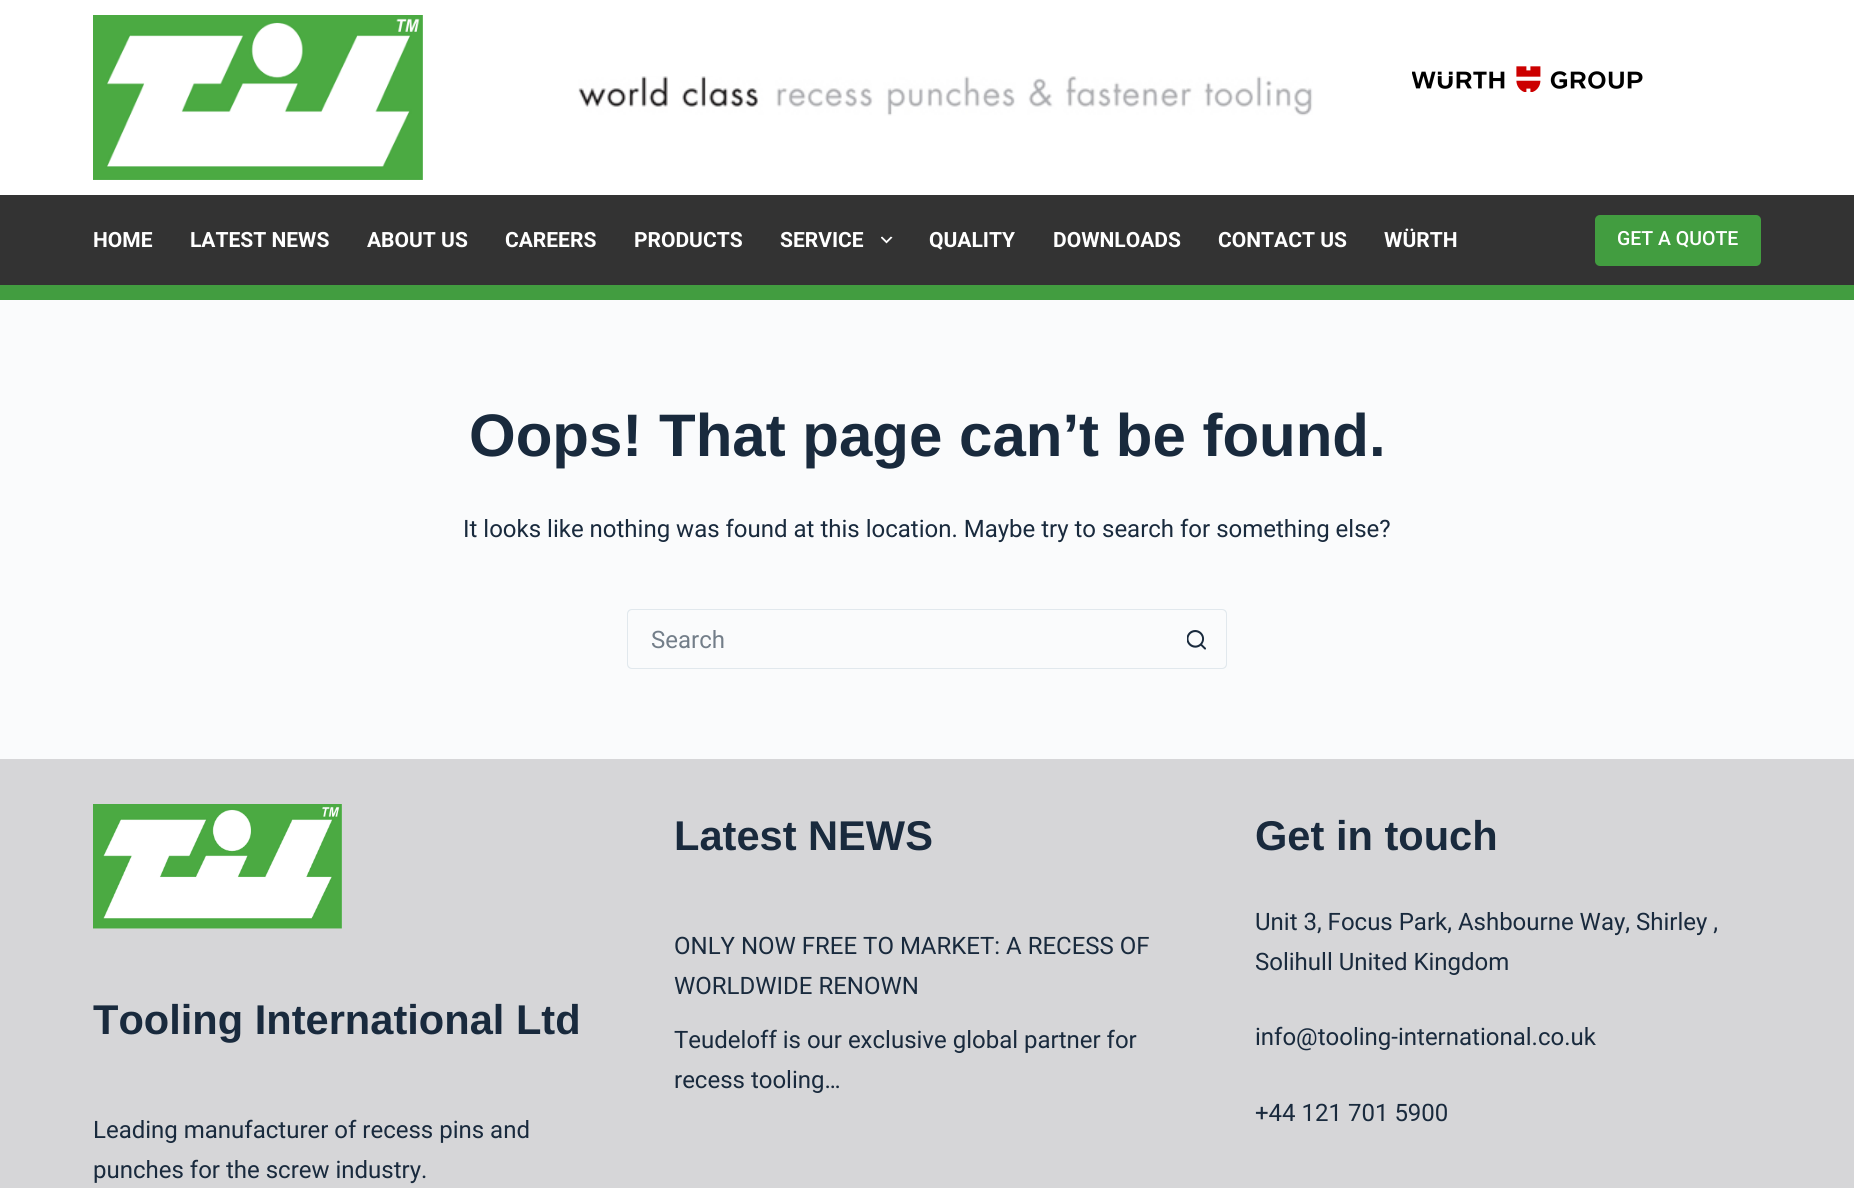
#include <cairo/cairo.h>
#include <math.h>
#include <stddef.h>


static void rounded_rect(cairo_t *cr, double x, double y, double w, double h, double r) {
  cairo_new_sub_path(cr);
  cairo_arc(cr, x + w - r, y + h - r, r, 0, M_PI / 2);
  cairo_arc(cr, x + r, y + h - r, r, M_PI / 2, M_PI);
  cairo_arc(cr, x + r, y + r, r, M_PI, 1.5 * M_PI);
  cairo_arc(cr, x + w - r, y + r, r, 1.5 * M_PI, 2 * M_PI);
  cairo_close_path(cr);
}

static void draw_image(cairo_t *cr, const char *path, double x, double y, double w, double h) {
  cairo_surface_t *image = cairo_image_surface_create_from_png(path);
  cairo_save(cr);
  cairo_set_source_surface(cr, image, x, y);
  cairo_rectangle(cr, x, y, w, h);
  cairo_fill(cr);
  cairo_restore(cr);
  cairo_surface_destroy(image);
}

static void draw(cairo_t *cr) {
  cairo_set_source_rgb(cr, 250 / 255.0, 251 / 255.0, 252 / 255.0);
  cairo_paint(cr);
  cairo_set_source_rgb(cr, 66 / 255.0, 157 / 255.0, 64 / 255.0);
  cairo_rectangle(cr, 0, 285, 1854, 15);
  cairo_fill(cr);
  cairo_set_source_rgb(cr, 1, 1, 1);
  cairo_rectangle(cr, 0, 0, 1854, 195);
  cairo_fill(cr);
  draw_image(cr, "images/1.png", 93, 15, 330, 165);
  draw_image(cr, "images/2.png", 578, 76, 735, 40);
  draw_image(cr, "images/3.png", 1412, 66, 231, 26);
  cairo_set_source_rgb(cr, 51 / 255.0, 51 / 255.0, 51 / 255.0);
  cairo_rectangle(cr, 0, 195, 1854, 90);
  cairo_fill(cr);
  draw_image(cr, "images/4.png", 881, 236, 12, 8);
  cairo_set_source_rgb(cr, 66 / 255.0, 157 / 255.0, 64 / 255.0);
  rounded_rect(cr, 1595, 215, 166, 51, 5);
  cairo_fill(cr);
  cairo_set_source_rgb(cr, 225 / 255.0, 232 / 255.0, 237 / 255.0);
  cairo_set_fill_rule(cr, CAIRO_FILL_RULE_EVEN_ODD);
  cairo_new_path(cr);
  cairo_move_to(cr, 632, 609);
  cairo_line_to(cr, 1167, 609);
  cairo_line_to(cr, 1167, 669);
  cairo_line_to(cr, 632, 669);
  cairo_curve_to(cr, 629, 669, 627, 667, 627, 664);
  cairo_line_to(cr, 627, 614);
  cairo_curve_to(cr, 627, 611, 629, 609, 632, 609);
  cairo_close_path(cr);
  cairo_move_to(cr, 632, 610);
  cairo_line_to(cr, 1167, 610);
  cairo_line_to(cr, 1167, 668);
  cairo_line_to(cr, 632, 668);
  cairo_curve_to(cr, 630, 668, 628, 666, 628, 664);
  cairo_line_to(cr, 628, 614);
  cairo_curve_to(cr, 628, 612, 630, 610, 632, 610);
  cairo_close_path(cr);
  cairo_fill(cr);
  cairo_new_path(cr);
  cairo_move_to(cr, 1167, 609);
  cairo_line_to(cr, 1222, 609);
  cairo_curve_to(cr, 1225, 609, 1227, 611, 1227, 614);
  cairo_line_to(cr, 1227, 664);
  cairo_curve_to(cr, 1227, 667, 1225, 669, 1222, 669);
  cairo_line_to(cr, 1167, 669);
  cairo_close_path(cr);
  cairo_move_to(cr, 1167, 610);
  cairo_line_to(cr, 1222, 610);
  cairo_curve_to(cr, 1224, 610, 1226, 612, 1226, 614);
  cairo_line_to(cr, 1226, 664);
  cairo_curve_to(cr, 1226, 666, 1224, 668, 1222, 668);
  cairo_line_to(cr, 1167, 668);
  cairo_close_path(cr);
  cairo_fill(cr);
  draw_image(cr, "images/5.png", 1187, 630, 19, 20);
  cairo_set_source_rgb(cr, 214 / 255.0, 214 / 255.0, 216 / 255.0);
  cairo_rectangle(cr, 0, 759, 1854, 429);
  cairo_fill(cr);
  draw_image(cr, "images/6.png", 93, 804, 249, 125);
  cairo_select_font_face(cr, "Roboto", CAIRO_FONT_SLANT_NORMAL, CAIRO_FONT_WEIGHT_BOLD);
  cairo_set_font_size(cr, 21);
  cairo_set_source_rgb(cr, 1, 1, 1);
  cairo_move_to(cr, 93, 247);
  cairo_show_text(cr, "HOME");
  cairo_move_to(cr, 190, 247);
  cairo_show_text(cr, "LATEST NEWS");
  cairo_move_to(cr, 367, 247);
  cairo_show_text(cr, "ABOUT US");
  cairo_move_to(cr, 505, 247);
  cairo_show_text(cr, "CAREERS");
  cairo_move_to(cr, 634, 247);
  cairo_show_text(cr, "PRODUCTS");
  cairo_move_to(cr, 780, 247);
  cairo_show_text(cr, "SERVICE");
  cairo_move_to(cr, 929, 247);
  cairo_show_text(cr, "QUALITY");
  cairo_move_to(cr, 1053, 247);
  cairo_show_text(cr, "DOWNLOADS");
  cairo_move_to(cr, 1218, 247);
  cairo_show_text(cr, "CONTACT US");
  cairo_move_to(cr, 1384, 247);
  cairo_show_text(cr, "WÜRTH");
  cairo_select_font_face(cr, "Roboto Medium", CAIRO_FONT_SLANT_NORMAL, CAIRO_FONT_WEIGHT_NORMAL);
  cairo_set_font_size(cr, 19.5);
  cairo_move_to(cr, 1617, 245);
  cairo_show_text(cr, "GET A QUOTE");
  cairo_select_font_face(cr, "Liberation Sans", CAIRO_FONT_SLANT_NORMAL, CAIRO_FONT_WEIGHT_BOLD);
  cairo_set_font_size(cr, 60);
  cairo_set_source_rgb(cr, 25 / 255.0, 42 / 255.0, 61 / 255.0);
  cairo_move_to(cr, 469, 456);
  cairo_show_text(cr, "Oops! That page can’t be found.");
  cairo_select_font_face(cr, "Roboto", CAIRO_FONT_SLANT_NORMAL, CAIRO_FONT_WEIGHT_NORMAL);
  cairo_set_font_size(cr, 24);
  cairo_move_to(cr, 463, 537);
  cairo_show_text(cr, "It looks like nothing was found at this location. Maybe try to search for something else?");
  cairo_set_source_rgb(cr, 115 / 255.0, 126 / 255.0, 137 / 255.0);
  cairo_move_to(cr, 651, 648);
  cairo_show_text(cr, "Search");
  cairo_select_font_face(cr, "Liberation Sans", CAIRO_FONT_SLANT_NORMAL, CAIRO_FONT_WEIGHT_BOLD);
  cairo_set_font_size(cr, 41.6);
  cairo_set_source_rgb(cr, 25 / 255.0, 42 / 255.0, 61 / 255.0);
  cairo_move_to(cr, 93, 1034);
  cairo_show_text(cr, "Tooling International Ltd");
  cairo_select_font_face(cr, "Roboto", CAIRO_FONT_SLANT_NORMAL, CAIRO_FONT_WEIGHT_NORMAL);
  cairo_set_font_size(cr, 24);
  cairo_move_to(cr, 93, 1138);
  cairo_show_text(cr, "Leading manufacturer of recess pins and");
  cairo_move_to(cr, 93, 1178);
  cairo_show_text(cr, "punches for the screw industry.");
  cairo_select_font_face(cr, "Liberation Sans", CAIRO_FONT_SLANT_NORMAL, CAIRO_FONT_WEIGHT_BOLD);
  cairo_set_font_size(cr, 41.6);
  cairo_move_to(cr, 674, 850);
  cairo_show_text(cr, "Latest NEWS");
  cairo_select_font_face(cr, "Roboto", CAIRO_FONT_SLANT_NORMAL, CAIRO_FONT_WEIGHT_NORMAL);
  cairo_set_font_size(cr, 24);
  cairo_move_to(cr, 674, 954);
  cairo_show_text(cr, "ONLY NOW FREE TO MARKET: A RECESS OF");
  cairo_move_to(cr, 674, 994);
  cairo_show_text(cr, "WORLDWIDE RENOWN");
  cairo_move_to(cr, 674, 1048);
  cairo_show_text(cr, "Teudeloff is our exclusive global partner for");
  cairo_move_to(cr, 674, 1088);
  cairo_show_text(cr, "recess tooling…");
  cairo_select_font_face(cr, "Liberation Sans", CAIRO_FONT_SLANT_NORMAL, CAIRO_FONT_WEIGHT_BOLD);
  cairo_set_font_size(cr, 41.6);
  cairo_move_to(cr, 1255, 850);
  cairo_show_text(cr, "Get in touch");
  cairo_select_font_face(cr, "Roboto", CAIRO_FONT_SLANT_NORMAL, CAIRO_FONT_WEIGHT_NORMAL);
  cairo_set_font_size(cr, 24);
  cairo_move_to(cr, 1255, 930);
  cairo_show_text(cr, "Unit 3, Focus Park, Ashbourne Way, Shirley ,");
  cairo_move_to(cr, 1255, 970);
  cairo_show_text(cr, "Solihull United Kingdom");
  cairo_move_to(cr, 1255, 1045);
  cairo_show_text(cr, "info@tooling-international.co.uk");
  cairo_move_to(cr, 1255, 1121);
  cairo_show_text(cr, "+44 121 701 5900");
}

int main(void) {
  cairo_surface_t *surface = cairo_image_surface_create(CAIRO_FORMAT_RGB24, 1854, 1188);
  cairo_t *cr = cairo_create(surface);
  cairo_font_options_t *options = cairo_font_options_create();
  cairo_font_options_set_hint_metrics(options, CAIRO_HINT_METRICS_OFF);
  cairo_font_options_set_hint_style(options, CAIRO_HINT_STYLE_NONE);
  cairo_set_font_options(cr, options);
  cairo_set_miter_limit(cr, 4);
  draw(cr);
  cairo_surface_write_to_png(surface, "out.png");
  cairo_font_options_destroy(options);
  cairo_destroy(cr);
  cairo_surface_destroy(surface);
  return 0;
}
